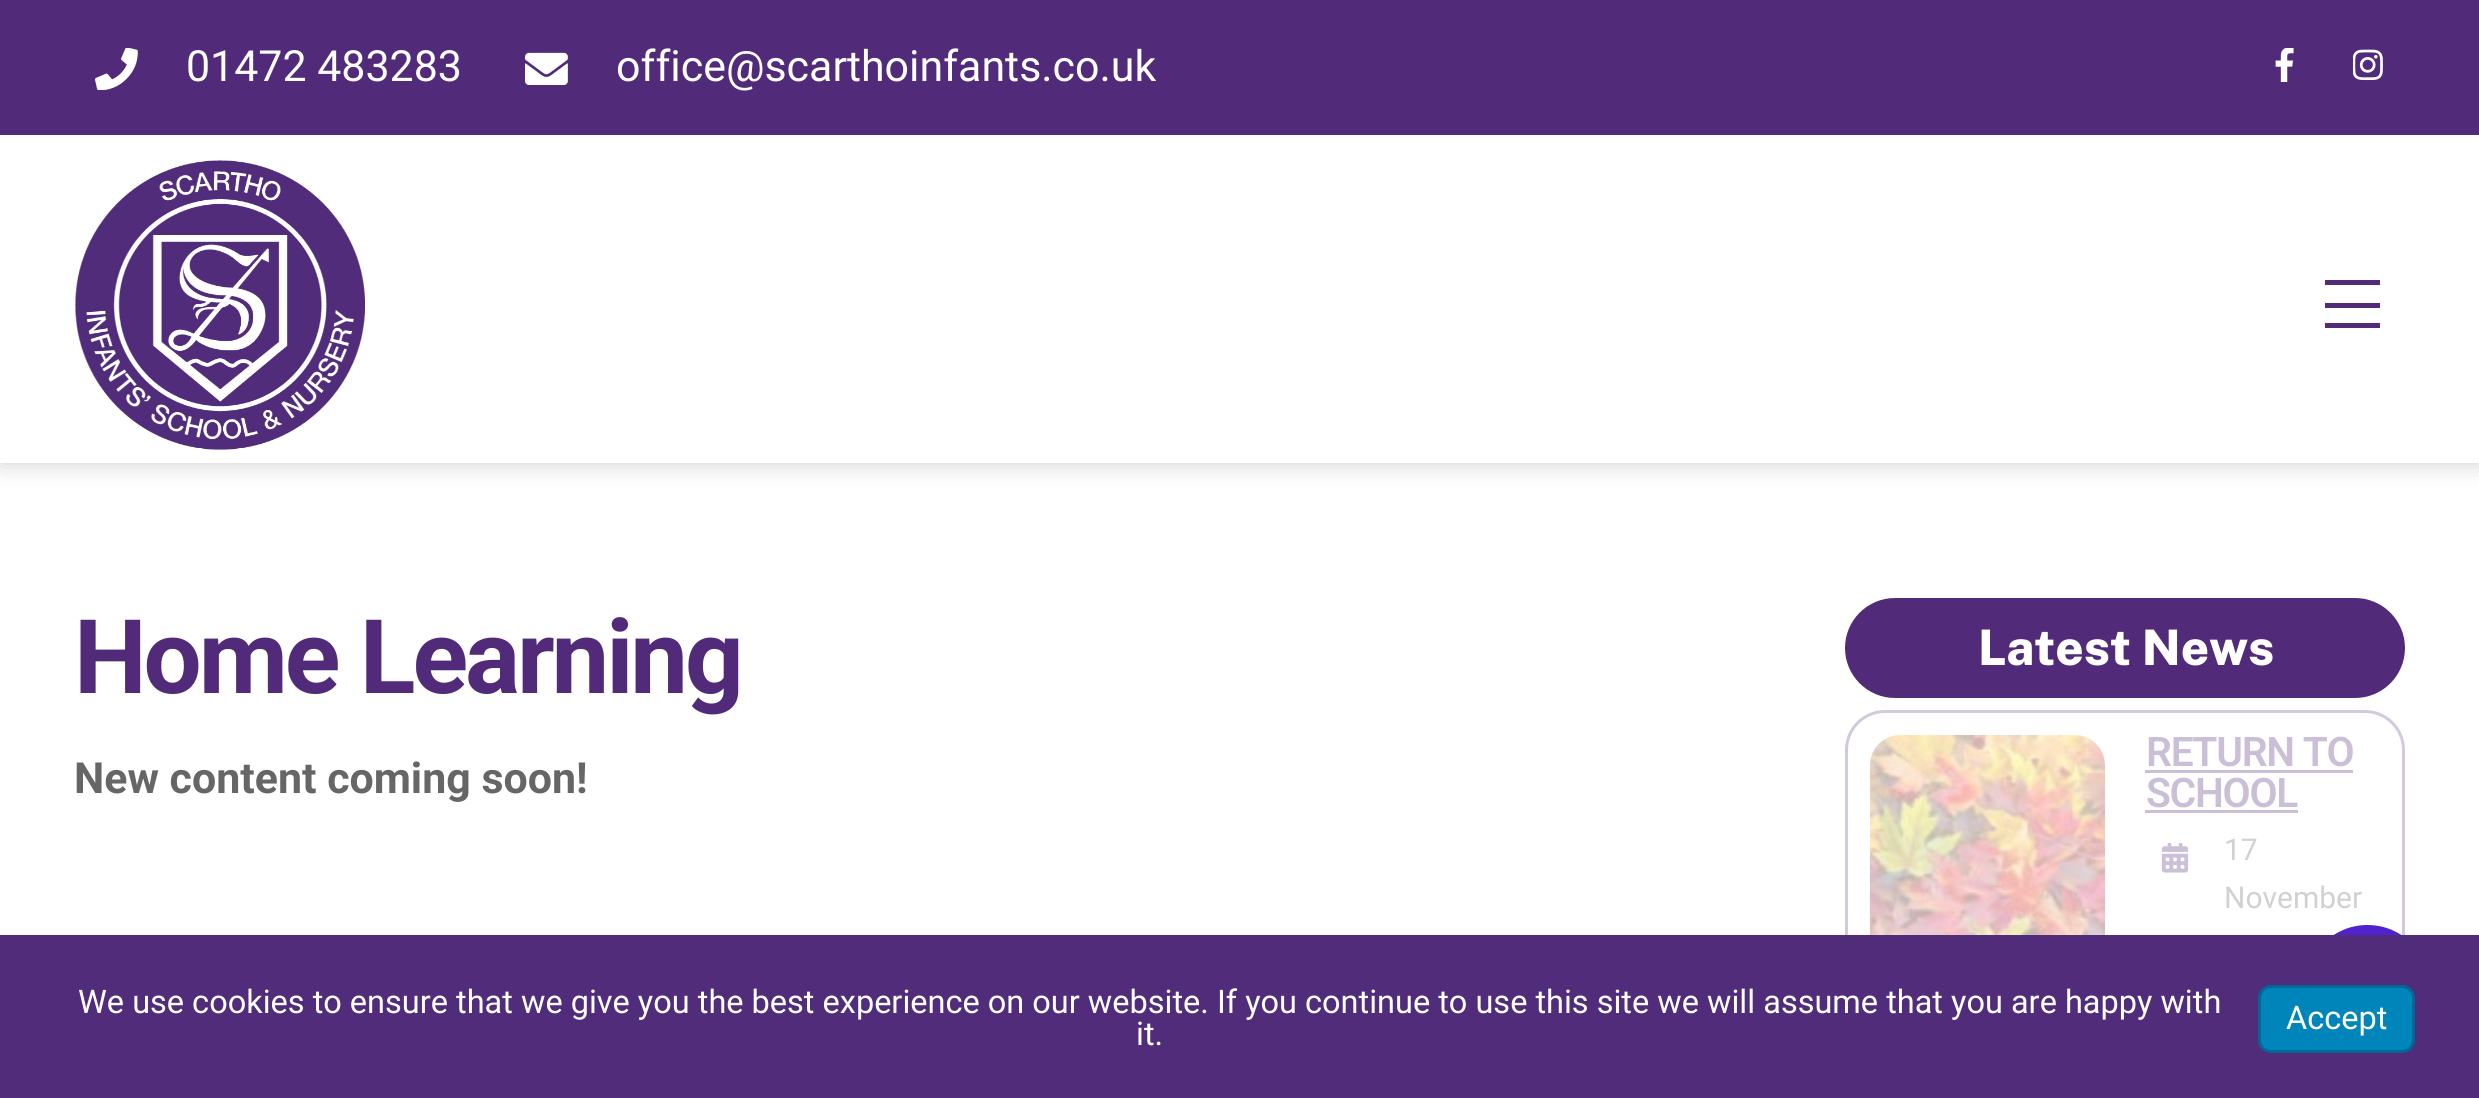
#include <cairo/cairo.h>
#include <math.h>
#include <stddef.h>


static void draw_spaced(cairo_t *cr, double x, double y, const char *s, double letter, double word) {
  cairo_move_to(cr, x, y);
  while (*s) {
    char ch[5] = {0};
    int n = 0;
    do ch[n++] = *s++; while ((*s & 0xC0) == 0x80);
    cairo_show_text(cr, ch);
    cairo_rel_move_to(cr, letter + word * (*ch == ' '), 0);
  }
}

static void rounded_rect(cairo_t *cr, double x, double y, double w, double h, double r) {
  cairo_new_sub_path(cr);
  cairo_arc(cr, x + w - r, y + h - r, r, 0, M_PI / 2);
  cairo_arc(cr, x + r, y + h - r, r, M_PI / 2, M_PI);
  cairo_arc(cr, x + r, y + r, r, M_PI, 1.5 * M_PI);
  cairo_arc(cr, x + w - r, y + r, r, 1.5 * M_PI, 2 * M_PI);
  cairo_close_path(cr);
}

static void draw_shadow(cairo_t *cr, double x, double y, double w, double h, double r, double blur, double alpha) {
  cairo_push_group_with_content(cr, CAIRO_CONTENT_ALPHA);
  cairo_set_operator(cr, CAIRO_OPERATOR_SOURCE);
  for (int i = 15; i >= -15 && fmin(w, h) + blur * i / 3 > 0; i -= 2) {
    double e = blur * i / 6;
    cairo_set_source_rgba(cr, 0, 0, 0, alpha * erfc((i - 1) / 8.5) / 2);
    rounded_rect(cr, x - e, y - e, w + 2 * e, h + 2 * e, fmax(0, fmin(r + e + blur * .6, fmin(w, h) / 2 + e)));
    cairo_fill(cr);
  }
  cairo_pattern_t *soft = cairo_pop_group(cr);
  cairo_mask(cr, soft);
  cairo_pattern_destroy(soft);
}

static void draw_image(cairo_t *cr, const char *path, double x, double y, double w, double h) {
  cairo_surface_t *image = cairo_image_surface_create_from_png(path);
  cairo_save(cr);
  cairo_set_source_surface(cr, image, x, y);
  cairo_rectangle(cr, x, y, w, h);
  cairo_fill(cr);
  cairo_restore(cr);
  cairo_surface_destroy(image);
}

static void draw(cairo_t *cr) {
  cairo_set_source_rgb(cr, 1, 1, 1);
  cairo_paint(cr);
  cairo_set_source_rgb(cr, 0, 0, 0);
  draw_shadow(cr, 0, 135, 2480, 328, 0, 12.5, 0.2);
  cairo_set_source_rgb(cr, 81 / 255.0, 43 / 255.0, 122 / 255.0);
  cairo_rectangle(cr, 0, 0, 2479, 135);
  cairo_fill(cr);
  draw_image(cr, "images/1.png", 95, 48, 43, 42);
  draw_image(cr, "images/2.png", 525, 52, 43, 33);
  draw_image(cr, "images/3.png", 2275, 48, 19, 34);
  draw_image(cr, "images/4.png", 2353, 49, 30, 32);
  cairo_set_source_rgb(cr, 1, 1, 1);
  cairo_rectangle(cr, 0, 135, 2479, 328);
  cairo_fill(cr);
  draw_image(cr, "images/5.png", 75, 160, 290, 290);
  cairo_set_source_rgb(cr, 81 / 255.0, 43 / 255.0, 122 / 255.0);
  cairo_rectangle(cr, 2325, 323, 55, 5);
  cairo_fill(cr);
  cairo_rectangle(cr, 2325, 280, 55, 5);
  cairo_fill(cr);
  cairo_rectangle(cr, 2325, 303, 55, 5);
  cairo_fill(cr);
  rounded_rect(cr, 1845, 598, 560, 100, 50);
  cairo_fill(cr);
  rounded_rect(cr, 1846.5, 711.5, 557, 285, 38.5);
  cairo_set_source_rgb(cr, 211 / 255.0, 201 / 255.0, 221 / 255.0);
  cairo_set_line_width(cr, 3);
  cairo_stroke(cr);
  draw_image(cr, "images/6.png", 1870, 735, 235, 200);
  cairo_set_source_rgb(cr, 203 / 255.0, 191 / 255.0, 215 / 255.0);
  cairo_rectangle(cr, 2145, 770, 208, 3);
  cairo_fill(cr);
  cairo_rectangle(cr, 2145, 810, 153, 3);
  cairo_fill(cr);
  draw_image(cr, "images/7.png", 2161, 843, 28, 30);
  cairo_set_source_rgb(cr, 80 / 255.0, 35 / 255.0, 206 / 255.0);
  cairo_arc(cr, 2367.5, 987.5, 62.5, 0, 2 * M_PI);
  cairo_fill(cr);
  cairo_set_source_rgb(cr, 81 / 255.0, 44 / 255.0, 123 / 255.0);
  cairo_rectangle(cr, 0, 935, 2479, 163);
  cairo_fill(cr);
  cairo_set_source_rgb(cr, 0, 133 / 255.0, 186 / 255.0);
  rounded_rect(cr, 2259.5, 986.5, 154, 65, 11.5);
  cairo_fill_preserve(cr);
  cairo_set_source_rgb(cr, 0, 103 / 255.0, 153 / 255.0);
  cairo_stroke(cr);
  cairo_select_font_face(cr, "Roboto", CAIRO_FONT_SLANT_NORMAL, CAIRO_FONT_WEIGHT_NORMAL);
  cairo_set_font_size(cr, 42.9);
  cairo_set_source_rgb(cr, 1, 1, 1);
  cairo_move_to(cr, 186, 81);
  cairo_show_text(cr, "01472 483283");
  cairo_move_to(cr, 616, 81);
  cairo_show_text(cr, "office@scarthoinfants.co.uk");
  cairo_select_font_face(cr, "Roboto", CAIRO_FONT_SLANT_NORMAL, CAIRO_FONT_WEIGHT_BOLD);
  cairo_set_font_size(cr, 103);
  cairo_set_source_rgb(cr, 81 / 255.0, 43 / 255.0, 122 / 255.0);
  draw_spaced(cr, 74, 693, "Home Learning", -3.1, 0);
  cairo_set_font_size(cr, 42.9);
  cairo_set_source_rgb(cr, 102 / 255.0, 102 / 255.0, 102 / 255.0);
  cairo_move_to(cr, 74, 793);
  cairo_show_text(cr, "New content coming soon!");
  cairo_select_font_face(cr, "Public Sans ExtraBold", CAIRO_FONT_SLANT_NORMAL, CAIRO_FONT_WEIGHT_NORMAL);
  cairo_set_font_size(cr, 49);
  cairo_set_source_rgb(cr, 1, 1, 1);
  cairo_move_to(cr, 1978, 665);
  cairo_show_text(cr, "Latest News");
  cairo_select_font_face(cr, "Roboto SemiBold", CAIRO_FONT_SLANT_NORMAL, CAIRO_FONT_WEIGHT_NORMAL);
  cairo_set_font_size(cr, 40.75);
  cairo_set_source_rgb(cr, 203 / 255.0, 191 / 255.0, 215 / 255.0);
  draw_spaced(cr, 2146, 766, "RETURN TO", -1.25, 0);
  draw_spaced(cr, 2146, 807, "SCHOOL", -1.25, 0);
  cairo_select_font_face(cr, "Roboto", CAIRO_FONT_SLANT_NORMAL, CAIRO_FONT_WEIGHT_NORMAL);
  cairo_set_font_size(cr, 30);
  cairo_set_source_rgb(cr, 209 / 255.0, 209 / 255.0, 209 / 255.0);
  cairo_move_to(cr, 2224, 860);
  cairo_show_text(cr, "17");
  cairo_move_to(cr, 2224, 908);
  cairo_show_text(cr, "November");
  cairo_set_font_size(cr, 32.5);
  cairo_set_source_rgb(cr, 1, 1, 1);
  cairo_move_to(cr, 78, 1013);
  cairo_show_text(cr, "We use cookies to ensure that we give you the best experience on our website. If you continue to use this site we will assume that you are happy with");
  cairo_move_to(cr, 1136, 1045);
  cairo_show_text(cr, "it.");
  cairo_move_to(cr, 2286, 1029);
  cairo_show_text(cr, "Accept");
}

int main(void) {
  cairo_surface_t *surface = cairo_image_surface_create(CAIRO_FORMAT_RGB24, 2479, 1098);
  cairo_t *cr = cairo_create(surface);
  cairo_font_options_t *options = cairo_font_options_create();
  cairo_font_options_set_hint_metrics(options, CAIRO_HINT_METRICS_OFF);
  cairo_font_options_set_hint_style(options, CAIRO_HINT_STYLE_NONE);
  cairo_set_font_options(cr, options);
  cairo_set_miter_limit(cr, 4);
  draw(cr);
  cairo_surface_write_to_png(surface, "out.png");
  cairo_font_options_destroy(options);
  cairo_destroy(cr);
  cairo_surface_destroy(surface);
  return 0;
}
